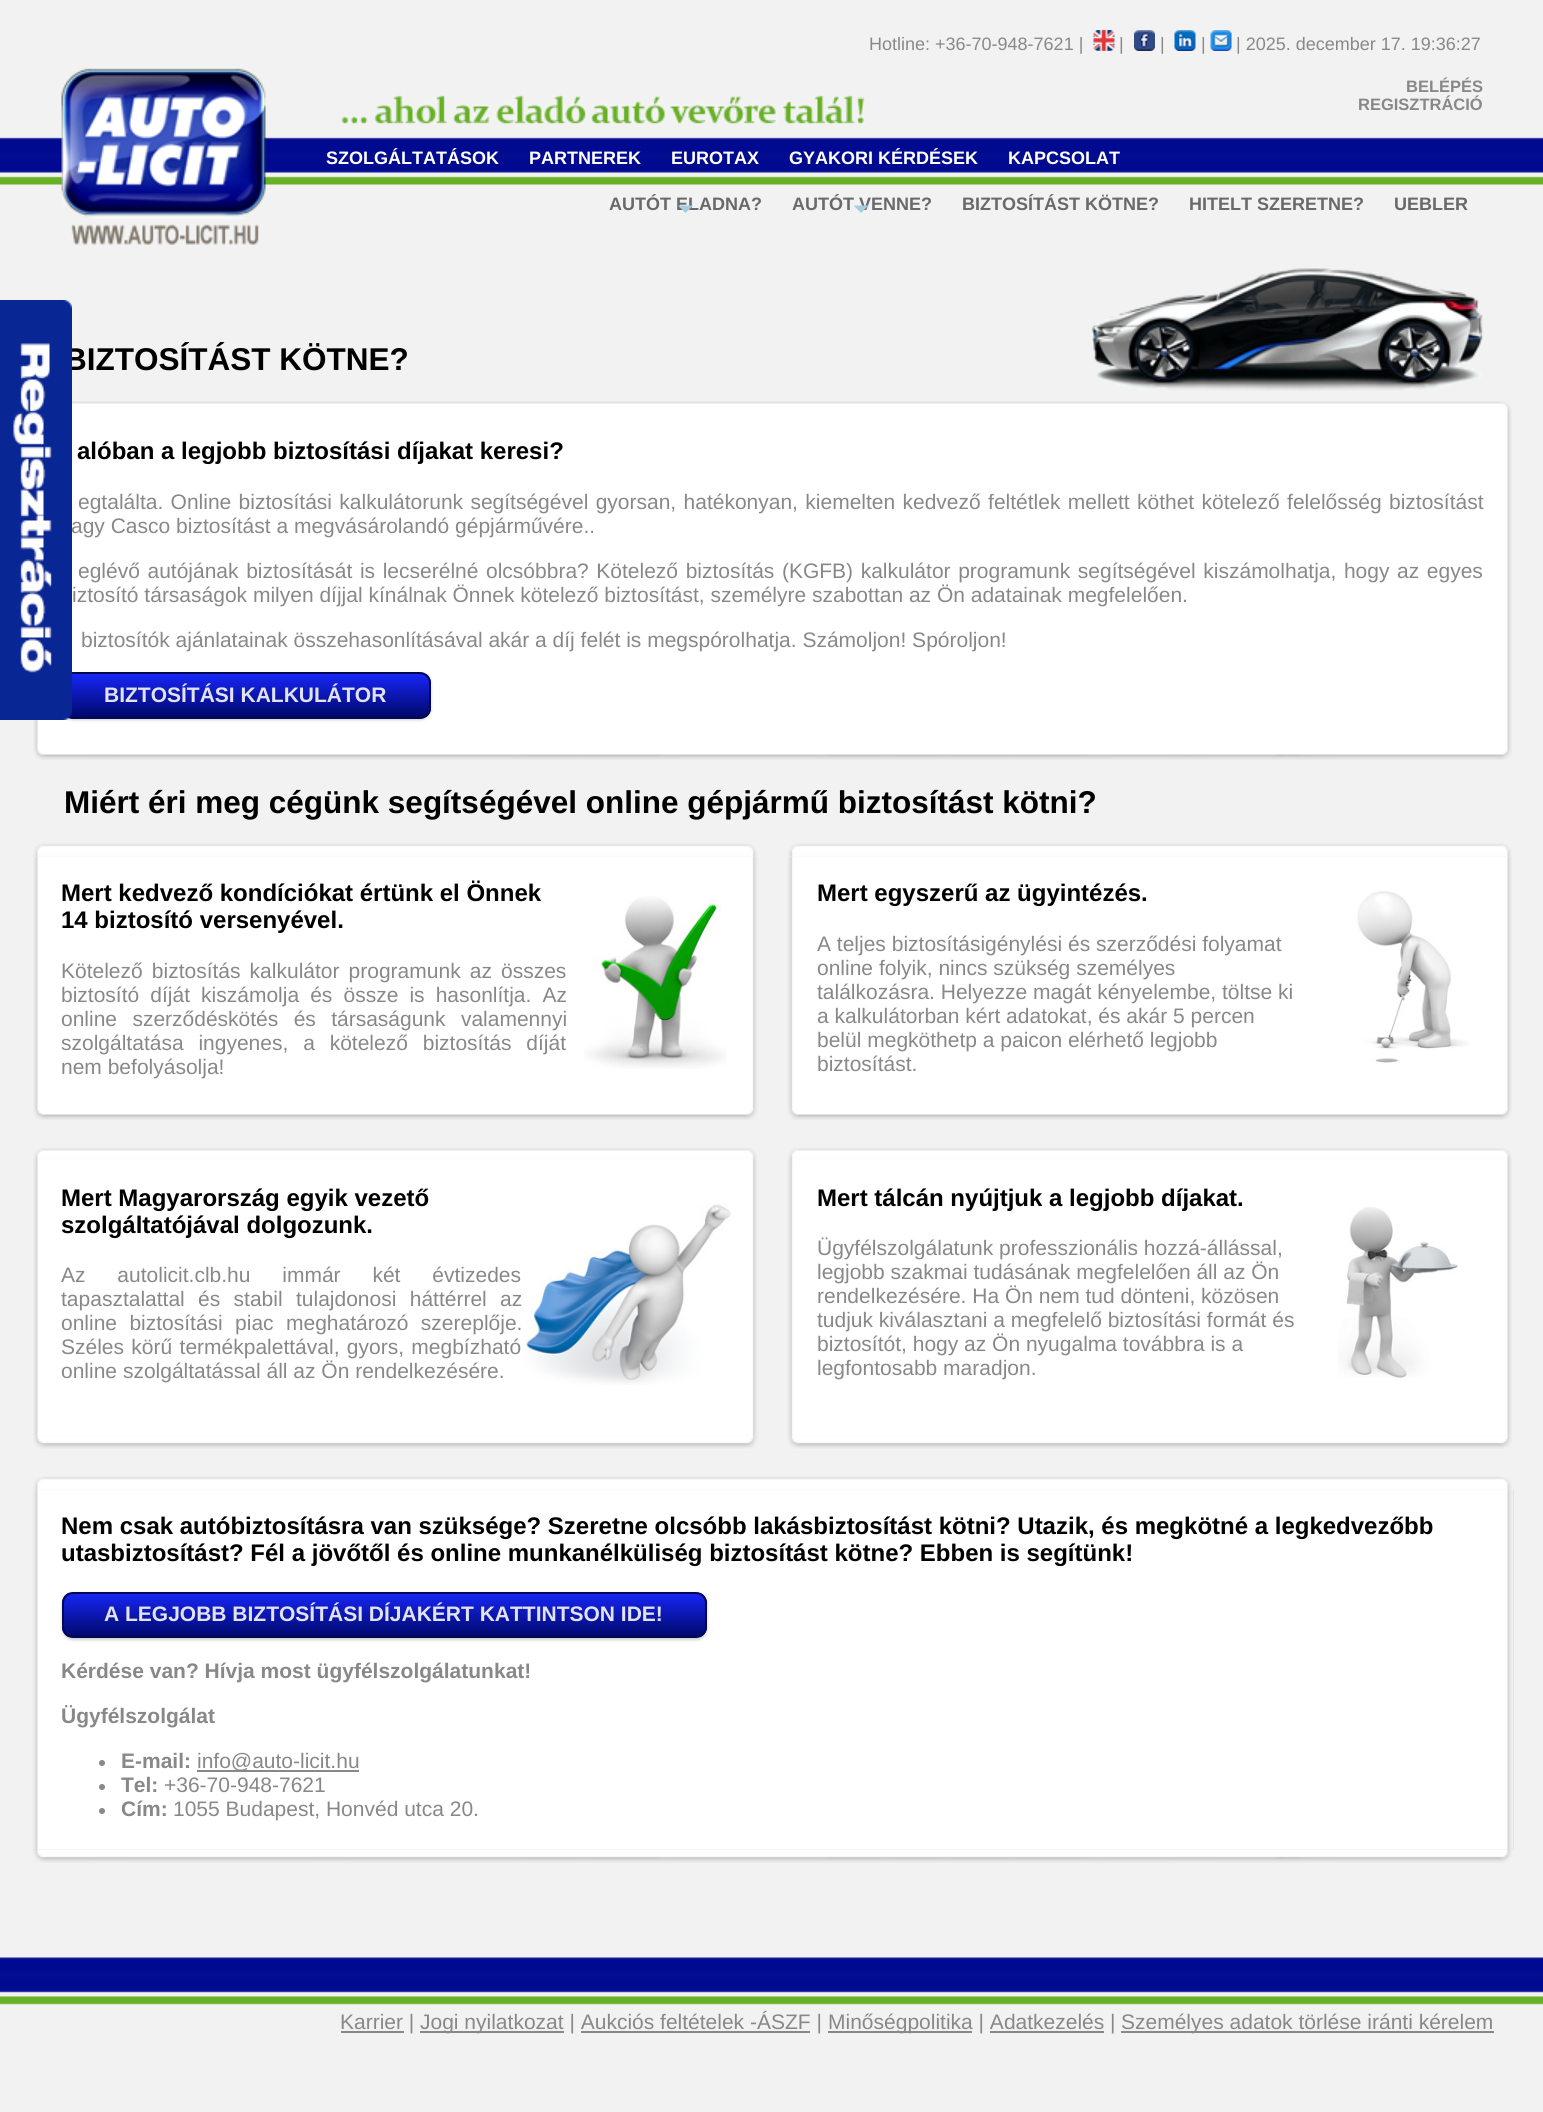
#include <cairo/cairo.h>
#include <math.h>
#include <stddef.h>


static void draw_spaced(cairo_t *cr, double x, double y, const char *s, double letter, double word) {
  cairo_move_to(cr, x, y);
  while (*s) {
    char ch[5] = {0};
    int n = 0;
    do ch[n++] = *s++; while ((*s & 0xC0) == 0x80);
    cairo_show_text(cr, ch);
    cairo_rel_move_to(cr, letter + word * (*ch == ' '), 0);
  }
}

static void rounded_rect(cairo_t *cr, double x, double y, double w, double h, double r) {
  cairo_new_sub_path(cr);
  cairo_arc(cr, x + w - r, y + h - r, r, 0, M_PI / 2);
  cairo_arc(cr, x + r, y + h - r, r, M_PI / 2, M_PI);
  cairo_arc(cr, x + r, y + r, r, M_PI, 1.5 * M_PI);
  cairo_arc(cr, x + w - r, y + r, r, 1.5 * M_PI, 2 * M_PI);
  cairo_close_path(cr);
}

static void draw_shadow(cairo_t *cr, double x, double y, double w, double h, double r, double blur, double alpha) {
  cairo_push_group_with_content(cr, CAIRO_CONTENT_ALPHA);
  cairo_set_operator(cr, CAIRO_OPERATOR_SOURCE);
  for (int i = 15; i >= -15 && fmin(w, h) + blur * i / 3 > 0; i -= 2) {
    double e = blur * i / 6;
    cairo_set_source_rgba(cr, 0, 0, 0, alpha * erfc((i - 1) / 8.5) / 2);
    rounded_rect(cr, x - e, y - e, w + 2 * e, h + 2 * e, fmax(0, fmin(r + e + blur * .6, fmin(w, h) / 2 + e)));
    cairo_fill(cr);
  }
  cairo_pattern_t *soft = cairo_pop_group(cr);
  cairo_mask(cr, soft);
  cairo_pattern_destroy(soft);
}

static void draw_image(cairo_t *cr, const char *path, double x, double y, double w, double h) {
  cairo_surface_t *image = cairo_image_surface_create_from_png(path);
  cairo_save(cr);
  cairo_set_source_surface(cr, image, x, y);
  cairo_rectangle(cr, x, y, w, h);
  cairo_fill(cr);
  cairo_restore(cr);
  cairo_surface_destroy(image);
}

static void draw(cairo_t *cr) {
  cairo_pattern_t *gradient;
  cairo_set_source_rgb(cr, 242 / 255.0, 242 / 255.0, 242 / 255.0);
  cairo_paint(cr);
  draw_image(cr, "images/1.png", 1093, 30, 22, 21);
  draw_image(cr, "images/2.png", 1134, 30, 21, 21);
  draw_image(cr, "images/3.png", 1174, 30, 22, 21);
  draw_image(cr, "images/4.png", 1210, 30, 22, 21);
  draw_image(cr, "images/5.png", 0, 137, 1543, 48);
  draw_image(cr, "images/6.png", 61, 68, 205, 177);
  draw_image(cr, "images/7.png", 341, 95, 524, 29);
  draw_image(cr, "images/9.png", 1091, 267, 392, 124);
  draw_image(cr, "images/10.png", 72, 401, 1440, 13);
  draw_image(cr, "images/11.png", 33, 414, 1479, 333);
  cairo_set_source_rgb(cr, 0, 0, 0);
  draw_shadow(cr, 62, 674, 369, 46, 11, 1.5, 0.2);
  cairo_save(cr);
  rounded_rect(cr, 62, 672, 369, 47, 11);
  cairo_clip(cr);
  gradient = cairo_pattern_create_linear(63, 674, 63, 717);
  cairo_pattern_add_color_stop_rgba(gradient, 0, 23 / 255.0, 38 / 255.0, 246 / 255.0, 1);
  cairo_pattern_add_color_stop_rgba(gradient, 1, 0, 8 / 255.0, 107 / 255.0, 1);
  cairo_set_source(cr, gradient);
  cairo_pattern_destroy(gradient);
  cairo_rectangle(cr, 68, 674, 363, 43);
  cairo_fill(cr);
  cairo_restore(cr);
  rounded_rect(cr, 63, 673, 367, 45, 10);
  cairo_set_source_rgb(cr, 2 / 255.0, 8 / 255.0, 81 / 255.0);
  cairo_stroke(cr);
  draw_image(cr, "images/12.png", 33, 747, 1479, 13);
  draw_image(cr, "images/14.png", 33, 856, 1479, 251);
  draw_image(cr, "images/13.png", 33, 843, 1479, 14);
  draw_image(cr, "images/15.png", 584, 896, 143, 173);
  draw_image(cr, "images/16.png", 1357, 891, 113, 172);
  draw_image(cr, "images/17.png", 33, 1107, 1479, 13);
  draw_image(cr, "images/18.png", 33, 1148, 1479, 13);
  draw_image(cr, "images/19.png", 33, 1161, 1479, 275);
  draw_image(cr, "images/20.png", 522, 1204, 209, 181);
  draw_image(cr, "images/21.png", 1338, 1207, 120, 171);
  draw_image(cr, "images/22.png", 33, 1435, 1479, 14);
  cairo_set_source_rgb(cr, 214 / 255.0, 214 / 255.0, 214 / 255.0);
  cairo_rectangle(cr, 32, 1490, 1482, 360);
  cairo_fill(cr);
  draw_image(cr, "images/24.png", 32, 1489, 1482, 361);
  draw_image(cr, "images/23.png", 33, 1476, 1479, 14);
  cairo_set_source_rgb(cr, 0, 0, 0);
  draw_shadow(cr, 62, 1593, 645, 47, 11, 1.5, 0.2);
  cairo_save(cr);
  rounded_rect(cr, 62, 1592, 645, 46, 11);
  cairo_clip(cr);
  gradient = cairo_pattern_create_linear(63, 1593, 63, 1637);
  cairo_pattern_add_color_stop_rgba(gradient, 0, 23 / 255.0, 38 / 255.0, 246 / 255.0, 1);
  cairo_pattern_add_color_stop_rgba(gradient, 1, 0, 8 / 255.0, 107 / 255.0, 1);
  cairo_set_source(cr, gradient);
  cairo_pattern_destroy(gradient);
  cairo_rectangle(cr, 62, 1593, 645, 44);
  cairo_fill(cr);
  cairo_restore(cr);
  rounded_rect(cr, 63, 1593, 643, 44, 10);
  cairo_set_source_rgb(cr, 2 / 255.0, 8 / 255.0, 81 / 255.0);
  cairo_stroke(cr);
  cairo_set_source_rgb(cr, 136 / 255.0, 136 / 255.0, 136 / 255.0);
  cairo_arc(cr, 102, 1763, 3, 0, 2 * M_PI);
  cairo_fill(cr);
  cairo_rectangle(cr, 197, 1770, 162, 2);
  cairo_fill(cr);
  cairo_arc(cr, 102, 1787, 3, 0, 2 * M_PI);
  cairo_fill(cr);
  cairo_arc(cr, 102, 1811, 3, 0, 2 * M_PI);
  cairo_fill(cr);
  draw_image(cr, "images/25.png", 32, 1849, 1482, 14);
  draw_image(cr, "images/26.png", 0, 1957, 1543, 48);
  cairo_rectangle(cr, 341, 2031, 63, 2);
  cairo_fill(cr);
  cairo_rectangle(cr, 420, 2031, 144, 2);
  cairo_fill(cr);
  cairo_rectangle(cr, 828, 2031, 144, 2);
  cairo_fill(cr);
  cairo_rectangle(cr, 1121, 2031, 373, 2);
  cairo_fill(cr);
  cairo_rectangle(cr, 581, 2031, 229, 2);
  cairo_fill(cr);
  cairo_rectangle(cr, 990, 2031, 114, 2);
  cairo_fill(cr);
  cairo_select_font_face(cr, "Liberation Sans", CAIRO_FONT_SLANT_NORMAL, CAIRO_FONT_WEIGHT_NORMAL);
  cairo_set_font_size(cr, 18);
  cairo_move_to(cr, 869, 50);
  cairo_show_text(cr, "Hotline: +36-70-948-7621 |");
  cairo_move_to(cr, 1119, 50);
  cairo_show_text(cr, "|");
  cairo_move_to(cr, 1160, 50);
  cairo_show_text(cr, "|");
  cairo_move_to(cr, 1201, 50);
  cairo_show_text(cr, "|");
  cairo_move_to(cr, 1236, 50);
  cairo_show_text(cr, "| 2025. december 17. 19:36:27");
  cairo_select_font_face(cr, "Liberation Sans", CAIRO_FONT_SLANT_NORMAL, CAIRO_FONT_WEIGHT_BOLD);
  cairo_set_font_size(cr, 16.5);
  cairo_move_to(cr, 1406, 92);
  cairo_show_text(cr, "BELÉPÉS");
  cairo_move_to(cr, 1358, 110);
  cairo_show_text(cr, "REGISZTRÁCIÓ");
  cairo_set_font_size(cr, 18);
  cairo_set_source_rgb(cr, 1, 1, 1);
  cairo_move_to(cr, 326, 164);
  cairo_show_text(cr, "SZOLGÁLTATÁSOK");
  cairo_move_to(cr, 529, 164);
  cairo_show_text(cr, "PARTNEREK");
  cairo_move_to(cr, 671, 164);
  cairo_show_text(cr, "EUROTAX");
  cairo_move_to(cr, 789, 164);
  cairo_show_text(cr, "GYAKORI KÉRDÉSEK");
  cairo_move_to(cr, 1008, 164);
  cairo_show_text(cr, "KAPCSOLAT");
  cairo_set_source_rgb(cr, 105 / 255.0, 105 / 255.0, 105 / 255.0);
  cairo_move_to(cr, 609, 210);
  cairo_show_text(cr, "AUTÓT ELADNA?");
  cairo_set_source_rgb(cr, 164 / 255.0, 205 / 255.0, 225 / 255.0);
  cairo_new_path(cr);
  cairo_move_to(cr, 678, 205.5);
  cairo_line_to(cr, 693, 205.5);
  cairo_line_to(cr, 685.5, 213);
  cairo_close_path(cr);
  cairo_fill(cr);
  cairo_set_source_rgb(cr, 105 / 255.0, 105 / 255.0, 105 / 255.0);
  cairo_move_to(cr, 792, 210);
  cairo_show_text(cr, "AUTÓT VENNE?");
  cairo_set_source_rgb(cr, 164 / 255.0, 205 / 255.0, 225 / 255.0);
  cairo_new_path(cr);
  cairo_move_to(cr, 853.5, 205.5);
  cairo_line_to(cr, 868.5, 205.5);
  cairo_line_to(cr, 861, 213);
  cairo_close_path(cr);
  cairo_fill(cr);
  cairo_set_source_rgb(cr, 105 / 255.0, 105 / 255.0, 105 / 255.0);
  cairo_move_to(cr, 962, 210);
  cairo_show_text(cr, "BIZTOSÍTÁST KÖTNE?");
  cairo_move_to(cr, 1189, 210);
  cairo_show_text(cr, "HITELT SZERETNE?");
  cairo_move_to(cr, 1394, 210);
  cairo_show_text(cr, "UEBLER");
  cairo_set_font_size(cr, 31.5);
  cairo_set_source_rgb(cr, 0, 0, 0);
  cairo_move_to(cr, 64, 370);
  cairo_show_text(cr, "BIZTOSÍTÁST KÖTNE?");
  draw_image(cr, "images/8.png", 0, 300, 72, 420);
  cairo_set_font_size(cr, 24);
  cairo_move_to(cr, 77, 459);
  cairo_show_text(cr, "alóban a legjobb biztosítási díjakat keresi?");
  cairo_select_font_face(cr, "Liberation Sans", CAIRO_FONT_SLANT_NORMAL, CAIRO_FONT_WEIGHT_NORMAL);
  cairo_set_font_size(cr, 21);
  cairo_set_source_rgb(cr, 136 / 255.0, 136 / 255.0, 136 / 255.0);
  draw_spaced(cr, 78, 509, "egtalálta. Online biztosítási kalkulátorunk segítségével gyorsan, hatékonyan, kiemelten kedvező feltétlek mellett köthet kötelező felelősség biztosítást", 0, 1.5);
  cairo_move_to(cr, 71, 533);
  cairo_show_text(cr, "agy Casco biztosítást a megvásárolandó gépjárművére..");
  draw_spaced(cr, 78, 578, "eglévő autójának biztosítását is lecserélné olcsóbbra? Kötelező biztosítás (KGFB) kalkulátor programunk segítségével kiszámolhatja, hogy az egyes", 0, 1.75);
  cairo_move_to(cr, 72, 602);
  cairo_show_text(cr, "iztosító társaságok milyen díjjal kínálnak Önnek kötelező biztosítást, személyre szabottan az Ön adatainak megfelelően.");
  cairo_move_to(cr, 81, 647);
  cairo_show_text(cr, "biztosítók ajánlatainak összehasonlításával akár a díj felét is megspórolhatja. Számoljon! Spóroljon!");
  cairo_select_font_face(cr, "Liberation Sans", CAIRO_FONT_SLANT_NORMAL, CAIRO_FONT_WEIGHT_BOLD);
  cairo_set_source_rgb(cr, 226 / 255.0, 227 / 255.0, 240 / 255.0);
  cairo_move_to(cr, 104, 702);
  cairo_show_text(cr, "BIZTOSÍTÁSI KALKULÁTOR");
  cairo_set_font_size(cr, 31.5);
  cairo_set_source_rgb(cr, 0, 0, 0);
  cairo_move_to(cr, 64, 813);
  cairo_show_text(cr, "Miért éri meg cégünk segítségével online gépjármű biztosítást kötni?");
  cairo_set_font_size(cr, 24);
  cairo_move_to(cr, 61, 901);
  cairo_show_text(cr, "Mert kedvező kondíciókat értünk el Önnek");
  cairo_move_to(cr, 61, 928);
  cairo_show_text(cr, "14 biztosító versenyével.");
  cairo_select_font_face(cr, "Liberation Sans", CAIRO_FONT_SLANT_NORMAL, CAIRO_FONT_WEIGHT_NORMAL);
  cairo_set_font_size(cr, 21);
  cairo_set_source_rgb(cr, 136 / 255.0, 136 / 255.0, 136 / 255.0);
  draw_spaced(cr, 61, 978, "Kötelező biztosítás kalkulátor programunk az összes", 0, 3.25);
  draw_spaced(cr, 61, 1002, "biztosító díját kiszámolja és össze is hasonlítja. Az", 0, 5.25);
  draw_spaced(cr, 61, 1026, "online szerződéskötés és társaságunk valamennyi", 0, 9.5);
  draw_spaced(cr, 61, 1050, "szolgáltatása ingyenes, a kötelező biztosítás díját", 0, 9);
  cairo_move_to(cr, 61, 1074);
  cairo_show_text(cr, "nem befolyásolja!");
  cairo_select_font_face(cr, "Liberation Sans", CAIRO_FONT_SLANT_NORMAL, CAIRO_FONT_WEIGHT_BOLD);
  cairo_set_font_size(cr, 24);
  cairo_set_source_rgb(cr, 0, 0, 0);
  cairo_move_to(cr, 817, 901);
  cairo_show_text(cr, "Mert egyszerű az ügyintézés.");
  cairo_select_font_face(cr, "Liberation Sans", CAIRO_FONT_SLANT_NORMAL, CAIRO_FONT_WEIGHT_NORMAL);
  cairo_set_font_size(cr, 21);
  cairo_set_source_rgb(cr, 136 / 255.0, 136 / 255.0, 136 / 255.0);
  cairo_move_to(cr, 817, 951);
  cairo_show_text(cr, "A teljes biztosításigénylési és szerződési folyamat");
  cairo_move_to(cr, 817, 975);
  cairo_show_text(cr, "online folyik, nincs szükség személyes");
  cairo_move_to(cr, 817, 999);
  cairo_show_text(cr, "találkozásra. Helyezze magát kényelembe, töltse ki");
  cairo_move_to(cr, 817, 1023);
  cairo_show_text(cr, "a kalkulátorban kért adatokat, és akár 5 percen");
  cairo_move_to(cr, 817, 1047);
  cairo_show_text(cr, "belül megköthetp a paicon elérhető legjobb");
  cairo_move_to(cr, 817, 1071);
  cairo_show_text(cr, "biztosítást.");
  cairo_select_font_face(cr, "Liberation Sans", CAIRO_FONT_SLANT_NORMAL, CAIRO_FONT_WEIGHT_BOLD);
  cairo_set_font_size(cr, 24);
  cairo_set_source_rgb(cr, 0, 0, 0);
  cairo_move_to(cr, 61, 1206);
  cairo_show_text(cr, "Mert Magyarország egyik vezető");
  cairo_move_to(cr, 61, 1233);
  cairo_show_text(cr, "szolgáltatójával dolgozunk.");
  cairo_select_font_face(cr, "Liberation Sans", CAIRO_FONT_SLANT_NORMAL, CAIRO_FONT_WEIGHT_NORMAL);
  cairo_set_font_size(cr, 21);
  cairo_set_source_rgb(cr, 136 / 255.0, 136 / 255.0, 136 / 255.0);
  draw_spaced(cr, 61, 1282, "Az autolicit.clb.hu immár két évtizedes", 0, 26);
  draw_spaced(cr, 61, 1306, "tapasztalattal és stabil tulajdonosi háttérrel az", 0, 7.5);
  draw_spaced(cr, 61, 1330, "online biztosítási piac meghatározó szereplője.", 0, 6.5);
  draw_spaced(cr, 61, 1354, "Széles körű termékpalettával, gyors, megbízható", 0, 1.5);
  cairo_move_to(cr, 61, 1378);
  cairo_show_text(cr, "online szolgáltatással áll az Ön rendelkezésére.");
  cairo_select_font_face(cr, "Liberation Sans", CAIRO_FONT_SLANT_NORMAL, CAIRO_FONT_WEIGHT_BOLD);
  cairo_set_font_size(cr, 24);
  cairo_set_source_rgb(cr, 0, 0, 0);
  cairo_move_to(cr, 817, 1206);
  cairo_show_text(cr, "Mert tálcán nyújtjuk a legjobb díjakat.");
  cairo_select_font_face(cr, "Liberation Sans", CAIRO_FONT_SLANT_NORMAL, CAIRO_FONT_WEIGHT_NORMAL);
  cairo_set_font_size(cr, 21);
  cairo_set_source_rgb(cr, 136 / 255.0, 136 / 255.0, 136 / 255.0);
  cairo_move_to(cr, 817, 1255);
  cairo_show_text(cr, "Ügyfélszolgálatunk professzionális hozzá-állással,");
  cairo_move_to(cr, 817, 1279);
  cairo_show_text(cr, "legjobb szakmai tudásának megfelelően áll az Ön");
  cairo_move_to(cr, 817, 1303);
  cairo_show_text(cr, "rendelkezésére. Ha Ön nem tud dönteni, közösen");
  cairo_move_to(cr, 817, 1327);
  cairo_show_text(cr, "tudjuk kiválasztani a megfelelő biztosítási formát és");
  cairo_move_to(cr, 817, 1351);
  cairo_show_text(cr, "biztosítót, hogy az Ön nyugalma továbbra is a");
  cairo_move_to(cr, 817, 1375);
  cairo_show_text(cr, "legfontosabb maradjon.");
  cairo_select_font_face(cr, "Liberation Sans", CAIRO_FONT_SLANT_NORMAL, CAIRO_FONT_WEIGHT_BOLD);
  cairo_set_font_size(cr, 24);
  cairo_set_source_rgb(cr, 0, 0, 0);
  cairo_move_to(cr, 61, 1534);
  cairo_show_text(cr, "Nem csak autóbiztosításra van szüksége? Szeretne olcsóbb lakásbiztosítást kötni? Utazik, és megkötné a legkedvezőbb");
  cairo_move_to(cr, 61, 1561);
  cairo_show_text(cr, "utasbiztosítást? Fél a jövőtől és online munkanélküliség biztosítást kötne? Ebben is segítünk!");
  cairo_set_font_size(cr, 21);
  cairo_set_source_rgb(cr, 226 / 255.0, 227 / 255.0, 240 / 255.0);
  cairo_move_to(cr, 104, 1621);
  cairo_show_text(cr, "A LEGJOBB BIZTOSÍTÁSI DÍJAKÉRT KATTINTSON IDE!");
  cairo_set_source_rgb(cr, 136 / 255.0, 136 / 255.0, 136 / 255.0);
  cairo_move_to(cr, 61, 1678);
  cairo_show_text(cr, "Kérdése van? Hívja most ügyfélszolgálatunkat!");
  cairo_move_to(cr, 61, 1723);
  cairo_show_text(cr, "Ügyfélszolgálat");
  cairo_move_to(cr, 121, 1768);
  cairo_show_text(cr, "E-mail:");
  cairo_select_font_face(cr, "Liberation Sans", CAIRO_FONT_SLANT_NORMAL, CAIRO_FONT_WEIGHT_NORMAL);
  cairo_move_to(cr, 197, 1768);
  cairo_show_text(cr, "info@auto-licit.hu");
  cairo_select_font_face(cr, "Liberation Sans", CAIRO_FONT_SLANT_NORMAL, CAIRO_FONT_WEIGHT_BOLD);
  cairo_move_to(cr, 121, 1792);
  cairo_show_text(cr, "Tel:");
  cairo_select_font_face(cr, "Liberation Sans", CAIRO_FONT_SLANT_NORMAL, CAIRO_FONT_WEIGHT_NORMAL);
  cairo_move_to(cr, 164, 1792);
  cairo_show_text(cr, "+36-70-948-7621");
  cairo_select_font_face(cr, "Liberation Sans", CAIRO_FONT_SLANT_NORMAL, CAIRO_FONT_WEIGHT_BOLD);
  cairo_move_to(cr, 121, 1816);
  cairo_show_text(cr, "Cím:");
  cairo_select_font_face(cr, "Liberation Sans", CAIRO_FONT_SLANT_NORMAL, CAIRO_FONT_WEIGHT_NORMAL);
  cairo_move_to(cr, 173, 1816);
  cairo_show_text(cr, "1055 Budapest, Honvéd utca 20.");
  cairo_move_to(cr, 340, 2029);
  cairo_show_text(cr, "Karrier |");
  cairo_move_to(cr, 420, 2029);
  cairo_show_text(cr, "Jogi nyilatkozat | Aukciós feltételek -ÁSZF |");
  cairo_move_to(cr, 828, 2029);
  cairo_show_text(cr, "Minőségpolitika | Adatkezelés |");
  cairo_move_to(cr, 1121, 2029);
  cairo_show_text(cr, "Személyes adatok törlése iránti kérelem");
}

int main(void) {
  cairo_surface_t *surface = cairo_image_surface_create(CAIRO_FORMAT_RGB24, 1543, 2112);
  cairo_t *cr = cairo_create(surface);
  cairo_font_options_t *options = cairo_font_options_create();
  cairo_font_options_set_hint_metrics(options, CAIRO_HINT_METRICS_OFF);
  cairo_font_options_set_hint_style(options, CAIRO_HINT_STYLE_NONE);
  cairo_set_font_options(cr, options);
  cairo_set_miter_limit(cr, 4);
  draw(cr);
  cairo_surface_write_to_png(surface, "out.png");
  cairo_font_options_destroy(options);
  cairo_destroy(cr);
  cairo_surface_destroy(surface);
  return 0;
}
